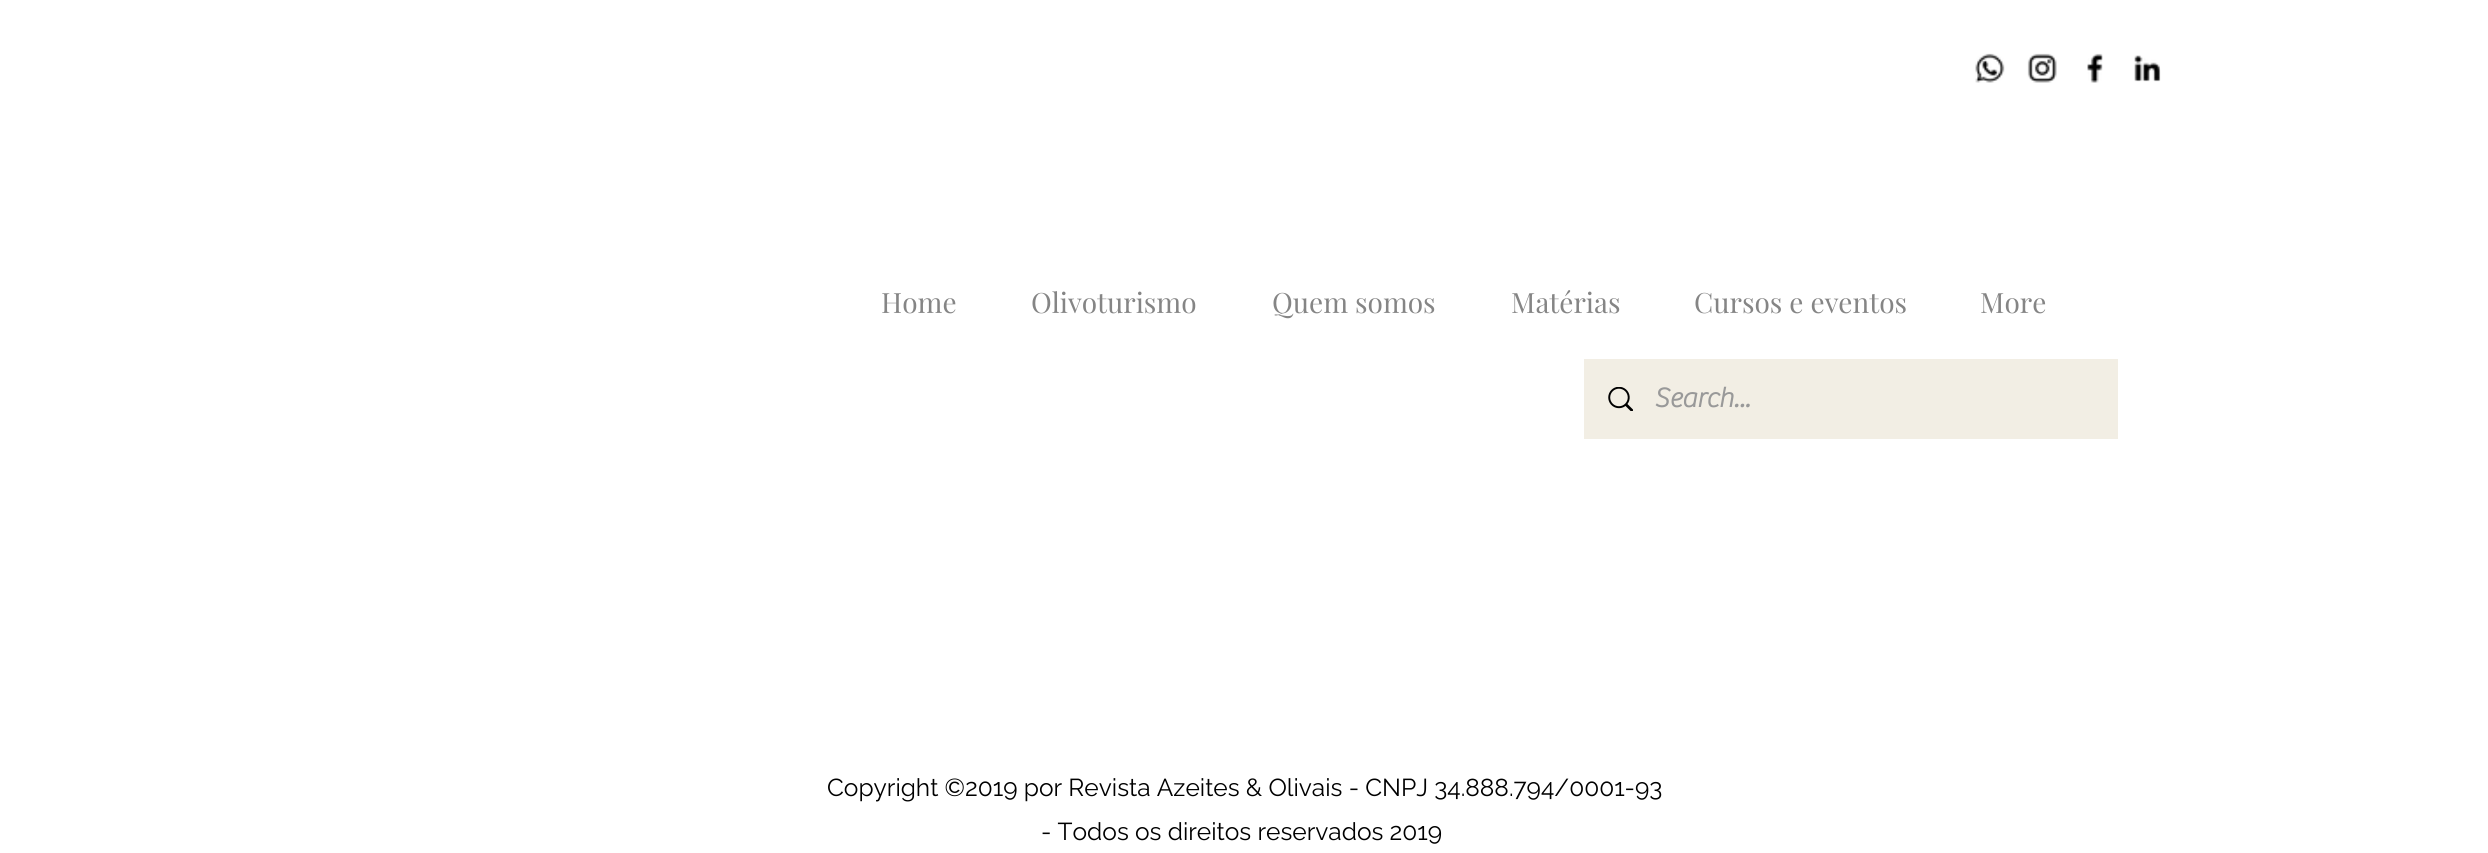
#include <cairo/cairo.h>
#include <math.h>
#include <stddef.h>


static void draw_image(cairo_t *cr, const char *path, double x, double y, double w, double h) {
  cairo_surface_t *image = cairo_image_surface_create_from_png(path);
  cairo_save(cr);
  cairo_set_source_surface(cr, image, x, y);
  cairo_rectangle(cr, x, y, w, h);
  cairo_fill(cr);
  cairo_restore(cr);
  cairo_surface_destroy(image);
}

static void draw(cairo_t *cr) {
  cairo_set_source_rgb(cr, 1, 1, 1);
  cairo_paint(cr);
  draw_image(cr, "images/1.png", 1975, 53, 30, 30);
  draw_image(cr, "images/2.png", 2027, 53, 30, 30);
  draw_image(cr, "images/3.png", 2087, 53, 16, 30);
  draw_image(cr, "images/4.png", 2134, 55, 27, 27);
  cairo_set_source_rgb(cr, 242 / 255.0, 238 / 255.0, 228 / 255.0);
  cairo_rectangle(cr, 1584, 359, 534, 80);
  cairo_fill(cr);
  draw_image(cr, "images/5.png", 1608, 387, 25, 24);
  cairo_select_font_face(cr, "Playfair Display", CAIRO_FONT_SLANT_NORMAL, CAIRO_FONT_WEIGHT_NORMAL);
  cairo_set_font_size(cr, 28);
  cairo_set_source_rgb(cr, 133 / 255.0, 133 / 255.0, 133 / 255.0);
  cairo_move_to(cr, 881, 313);
  cairo_show_text(cr, "Home");
  cairo_move_to(cr, 1031, 313);
  cairo_show_text(cr, "Olivoturismo");
  cairo_move_to(cr, 1272, 313);
  cairo_show_text(cr, "Quem somos");
  cairo_move_to(cr, 1511, 313);
  cairo_show_text(cr, "Matérias");
  cairo_move_to(cr, 1694, 313);
  cairo_show_text(cr, "Cursos e eventos");
  cairo_move_to(cr, 1980, 313);
  cairo_show_text(cr, "More");
  cairo_select_font_face(cr, "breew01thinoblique", CAIRO_FONT_SLANT_NORMAL, CAIRO_FONT_WEIGHT_BOLD);
  cairo_set_source_rgb(cr, 153 / 255.0, 153 / 255.0, 153 / 255.0);
  cairo_move_to(cr, 1654, 407);
  cairo_show_text(cr, "Search...");
  cairo_select_font_face(cr, "Raleway", CAIRO_FONT_SLANT_NORMAL, CAIRO_FONT_WEIGHT_NORMAL);
  cairo_set_font_size(cr, 24.5);
  cairo_set_source_rgb(cr, 0, 0, 0);
  cairo_move_to(cr, 827, 796);
  cairo_show_text(cr, "Copyright ©2019 por Revista Azeites & Olivais - CNPJ 34.888.794/0001-93");
  cairo_move_to(cr, 1041, 840);
  cairo_show_text(cr, "- Todos os direitos reservados 2019");
}

int main(void) {
  cairo_surface_t *surface = cairo_image_surface_create(CAIRO_FORMAT_RGB24, 2488, 853);
  cairo_t *cr = cairo_create(surface);
  cairo_font_options_t *options = cairo_font_options_create();
  cairo_font_options_set_hint_metrics(options, CAIRO_HINT_METRICS_OFF);
  cairo_font_options_set_hint_style(options, CAIRO_HINT_STYLE_NONE);
  cairo_set_font_options(cr, options);
  cairo_set_miter_limit(cr, 4);
  draw(cr);
  cairo_surface_write_to_png(surface, "out.png");
  cairo_font_options_destroy(options);
  cairo_destroy(cr);
  cairo_surface_destroy(surface);
  return 0;
}
